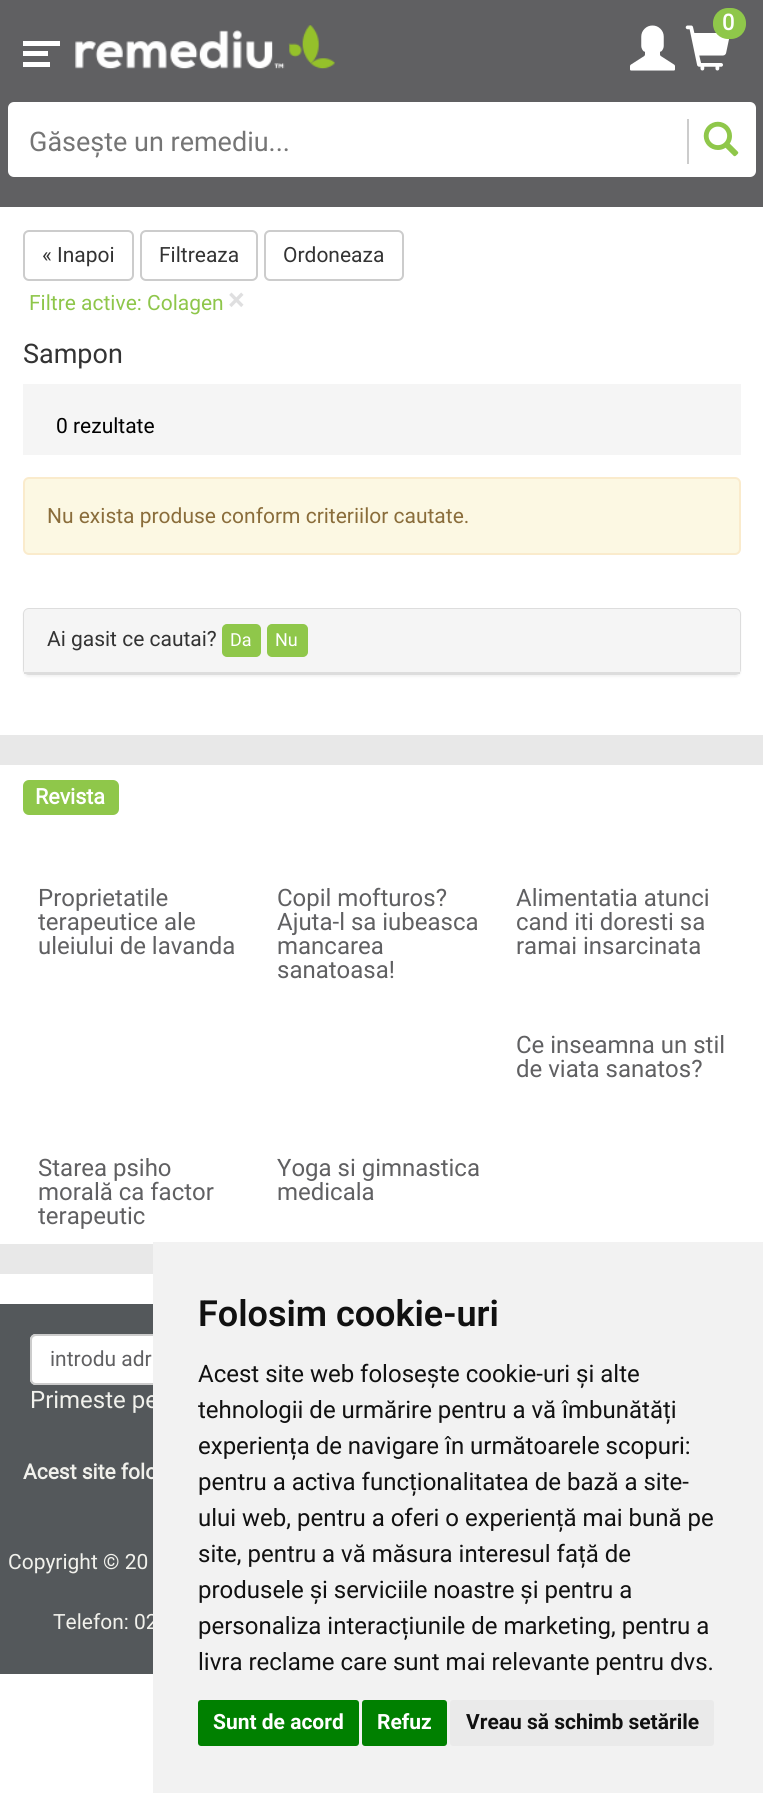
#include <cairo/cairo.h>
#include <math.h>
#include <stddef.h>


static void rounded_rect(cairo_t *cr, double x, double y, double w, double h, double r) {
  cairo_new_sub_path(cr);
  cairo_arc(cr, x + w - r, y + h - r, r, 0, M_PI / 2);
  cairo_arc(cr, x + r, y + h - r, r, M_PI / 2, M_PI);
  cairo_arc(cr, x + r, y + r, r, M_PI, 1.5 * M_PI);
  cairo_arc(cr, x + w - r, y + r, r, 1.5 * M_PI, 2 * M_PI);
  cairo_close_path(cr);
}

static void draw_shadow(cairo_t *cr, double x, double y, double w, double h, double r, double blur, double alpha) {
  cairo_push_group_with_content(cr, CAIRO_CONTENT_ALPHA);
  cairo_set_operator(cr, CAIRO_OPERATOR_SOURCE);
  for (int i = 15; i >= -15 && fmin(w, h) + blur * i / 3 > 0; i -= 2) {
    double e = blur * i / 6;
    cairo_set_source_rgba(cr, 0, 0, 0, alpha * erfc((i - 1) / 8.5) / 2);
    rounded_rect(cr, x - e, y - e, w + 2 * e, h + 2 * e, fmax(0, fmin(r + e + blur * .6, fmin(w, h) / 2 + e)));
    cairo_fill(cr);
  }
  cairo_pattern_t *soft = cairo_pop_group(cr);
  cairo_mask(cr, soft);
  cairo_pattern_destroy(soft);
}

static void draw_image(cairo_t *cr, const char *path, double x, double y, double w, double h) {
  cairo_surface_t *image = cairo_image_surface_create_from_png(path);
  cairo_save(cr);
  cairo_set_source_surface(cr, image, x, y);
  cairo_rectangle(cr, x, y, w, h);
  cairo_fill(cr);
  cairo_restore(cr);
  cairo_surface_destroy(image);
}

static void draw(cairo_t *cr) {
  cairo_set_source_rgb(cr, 1, 1, 1);
  cairo_paint(cr);
  cairo_set_source_rgb(cr, 96 / 255.0, 96 / 255.0, 98 / 255.0);
  cairo_rectangle(cr, 0, 0, 763, 207);
  cairo_fill(cr);
  draw_image(cr, "images/1.png", 685, 25, 44, 46);
  cairo_set_source_rgb(cr, 143 / 255.0, 199 / 255.0, 74 / 255.0);
  rounded_rect(cr, 713, 8, 33, 31, 15);
  cairo_fill(cr);
  draw_image(cr, "images/2.png", 630, 25, 45, 46);
  cairo_set_source_rgb(cr, 1, 1, 1);
  cairo_rectangle(cr, 23, 51, 25, 5);
  cairo_fill(cr);
  cairo_rectangle(cr, 23, 41, 37, 5);
  cairo_fill(cr);
  cairo_rectangle(cr, 23, 62, 27, 5);
  cairo_fill(cr);
  draw_image(cr, "images/3.png", 75, 25, 260, 44);
  rounded_rect(cr, 9, 103, 746, 73, 5);
  cairo_fill_preserve(cr);
  cairo_stroke(cr);
  cairo_set_source_rgb(cr, 204 / 255.0, 204 / 255.0, 204 / 255.0);
  cairo_rectangle(cr, 687, 119, 2, 45);
  cairo_fill(cr);
  draw_image(cr, "images/4.png", 703, 121, 36, 36);
  rounded_rect(cr, 24, 231, 109, 49, 5);
  cairo_stroke(cr);
  rounded_rect(cr, 141, 231, 116, 49, 5);
  cairo_stroke(cr);
  rounded_rect(cr, 265, 231, 138, 49, 5);
  cairo_stroke(cr);
  cairo_set_source_rgb(cr, 245 / 255.0, 245 / 255.0, 245 / 255.0);
  cairo_rectangle(cr, 23, 384, 718, 71);
  cairo_fill(cr);
  cairo_set_source_rgb(cr, 252 / 255.0, 248 / 255.0, 227 / 255.0);
  rounded_rect(cr, 24, 478, 716, 76, 5);
  cairo_fill_preserve(cr);
  cairo_set_source_rgb(cr, 250 / 255.0, 235 / 255.0, 204 / 255.0);
  cairo_stroke(cr);
  cairo_set_source_rgb(cr, 0, 0, 0);
  draw_shadow(cr, 23, 609, 718, 68, 6, 1, 0.05);
  rounded_rect(cr, 24, 609, 716, 65, 5);
  cairo_set_source_rgb(cr, 221 / 255.0, 221 / 255.0, 221 / 255.0);
  cairo_stroke(cr);
  cairo_set_source_rgb(cr, 245 / 255.0, 245 / 255.0, 245 / 255.0);
  cairo_new_path(cr);
  cairo_move_to(cr, 29, 609);
  cairo_line_to(cr, 735, 609);
  cairo_curve_to(cr, 738, 609, 740, 611, 740, 614);
  cairo_line_to(cr, 740, 674);
  cairo_line_to(cr, 24, 674);
  cairo_line_to(cr, 24, 614);
  cairo_curve_to(cr, 24, 611, 26, 609, 29, 609);
  cairo_close_path(cr);
  cairo_fill(cr);
  cairo_set_source_rgb(cr, 221 / 255.0, 221 / 255.0, 221 / 255.0);
  cairo_rectangle(cr, 24, 672, 716, 2);
  cairo_fill(cr);
  cairo_set_source_rgb(cr, 143 / 255.0, 199 / 255.0, 74 / 255.0);
  rounded_rect(cr, 223, 625, 37, 31, 4);
  cairo_fill_preserve(cr);
  cairo_stroke(cr);
  rounded_rect(cr, 268, 625, 39, 31, 4);
  cairo_fill_preserve(cr);
  cairo_stroke(cr);
  cairo_set_source_rgb(cr, 232 / 255.0, 232 / 255.0, 232 / 255.0);
  cairo_rectangle(cr, 0, 735, 763, 539);
  cairo_fill(cr);
  cairo_set_source_rgb(cr, 1, 1, 1);
  cairo_rectangle(cr, 0, 765, 763, 479);
  cairo_fill(cr);
  cairo_set_source_rgb(cr, 143 / 255.0, 199 / 255.0, 74 / 255.0);
  rounded_rect(cr, 23, 780, 96, 35, 6);
  cairo_fill(cr);
  cairo_set_source_rgb(cr, 84 / 255.0, 88 / 255.0, 91 / 255.0);
  cairo_rectangle(cr, 0, 1304, 153, 370);
  cairo_fill(cr);
  cairo_set_source_rgb(cr, 1, 1, 1);
  cairo_new_path(cr);
  cairo_move_to(cr, 36, 1334);
  cairo_line_to(cr, 675, 1334);
  cairo_line_to(cr, 675, 1385);
  cairo_line_to(cr, 36, 1385);
  cairo_curve_to(cr, 32.5, 1385, 30, 1382.5, 30, 1379);
  cairo_line_to(cr, 30, 1340);
  cairo_curve_to(cr, 30, 1336.5, 32.5, 1334, 36, 1334);
  cairo_close_path(cr);
  cairo_fill(cr);
  cairo_set_source_rgb(cr, 236 / 255.0, 236 / 255.0, 236 / 255.0);
  cairo_new_path(cr);
  cairo_move_to(cr, 36, 1336);
  cairo_line_to(cr, 674, 1336);
  cairo_line_to(cr, 674, 1335);
  cairo_line_to(cr, 37, 1335);
  cairo_curve_to(cr, 34, 1335, 32, 1338, 32, 1341);
  cairo_curve_to(cr, 32, 1339, 34, 1336, 36, 1336);
  cairo_close_path(cr);
  cairo_fill(cr);
  cairo_new_path(cr);
  cairo_move_to(cr, 36, 1335);
  cairo_line_to(cr, 674, 1335);
  cairo_line_to(cr, 674, 1384);
  cairo_line_to(cr, 36, 1384);
  cairo_curve_to(cr, 33, 1384, 31, 1382, 31, 1379);
  cairo_line_to(cr, 31, 1340);
  cairo_curve_to(cr, 31, 1337, 33, 1335, 36, 1335);
  cairo_close_path(cr);
  cairo_set_source_rgb(cr, 204 / 255.0, 204 / 255.0, 204 / 255.0);
  cairo_stroke(cr);
  cairo_select_font_face(cr, "Roboto", CAIRO_FONT_SLANT_NORMAL, CAIRO_FONT_WEIGHT_BOLD);
  cairo_set_font_size(cr, 22);
  cairo_set_source_rgb(cr, 1, 1, 1);
  cairo_move_to(cr, 722, 30);
  cairo_show_text(cr, "0");
  cairo_select_font_face(cr, "Roboto", CAIRO_FONT_SLANT_NORMAL, CAIRO_FONT_WEIGHT_NORMAL);
  cairo_set_font_size(cr, 27);
  cairo_set_source_rgb(cr, 117 / 255.0, 117 / 255.0, 117 / 255.0);
  cairo_move_to(cr, 29, 151);
  cairo_show_text(cr, "Găsește un remediu...");
  cairo_set_font_size(cr, 21);
  cairo_set_source_rgb(cr, 51 / 255.0, 51 / 255.0, 51 / 255.0);
  cairo_move_to(cr, 42, 262);
  cairo_show_text(cr, "« Inapoi");
  cairo_move_to(cr, 159, 262);
  cairo_show_text(cr, "Filtreaza");
  cairo_move_to(cr, 283, 262);
  cairo_show_text(cr, "Ordoneaza");
  cairo_set_source_rgb(cr, 142 / 255.0, 198 / 255.0, 74 / 255.0);
  cairo_move_to(cr, 29, 310);
  cairo_show_text(cr, "Filtre active: Colagen");
  cairo_select_font_face(cr, "Roboto", CAIRO_FONT_SLANT_NORMAL, CAIRO_FONT_WEIGHT_BOLD);
  cairo_set_font_size(cr, 30);
  cairo_set_source_rgb(cr, 223 / 255.0, 223 / 255.0, 224 / 255.0);
  cairo_move_to(cr, 228, 310);
  cairo_show_text(cr, "×");
  cairo_select_font_face(cr, "Roboto", CAIRO_FONT_SLANT_NORMAL, CAIRO_FONT_WEIGHT_NORMAL);
  cairo_set_font_size(cr, 27);
  cairo_set_source_rgb(cr, 51 / 255.0, 51 / 255.0, 51 / 255.0);
  cairo_move_to(cr, 23, 363);
  cairo_show_text(cr, "Sampon");
  cairo_set_font_size(cr, 21);
  cairo_set_source_rgb(cr, 0, 0, 0);
  cairo_move_to(cr, 56, 433);
  cairo_show_text(cr, "0 rezultate");
  cairo_set_source_rgb(cr, 138 / 255.0, 109 / 255.0, 59 / 255.0);
  cairo_move_to(cr, 47, 523);
  cairo_show_text(cr, "Nu exista produse conform criteriilor cautate.");
  cairo_set_source_rgb(cr, 51 / 255.0, 51 / 255.0, 51 / 255.0);
  cairo_move_to(cr, 47, 646);
  cairo_show_text(cr, "Ai gasit ce cautai?");
  cairo_set_font_size(cr, 18);
  cairo_set_source_rgb(cr, 1, 1, 1);
  cairo_move_to(cr, 230, 646);
  cairo_show_text(cr, "Da");
  cairo_move_to(cr, 275, 646);
  cairo_show_text(cr, "Nu");
  cairo_select_font_face(cr, "Roboto", CAIRO_FONT_SLANT_NORMAL, CAIRO_FONT_WEIGHT_BOLD);
  cairo_set_font_size(cr, 21.5);
  cairo_move_to(cr, 35, 804);
  cairo_show_text(cr, "Revista");
  cairo_select_font_face(cr, "Roboto", CAIRO_FONT_SLANT_NORMAL, CAIRO_FONT_WEIGHT_NORMAL);
  cairo_set_font_size(cr, 24);
  cairo_set_source_rgb(cr, 96 / 255.0, 96 / 255.0, 98 / 255.0);
  cairo_move_to(cr, 38, 906);
  cairo_show_text(cr, "Proprietatile");
  cairo_move_to(cr, 38, 930);
  cairo_show_text(cr, "terapeutice ale");
  cairo_move_to(cr, 38, 954);
  cairo_show_text(cr, "uleiului de lavanda");
  cairo_move_to(cr, 277, 906);
  cairo_show_text(cr, "Copil mofturos?");
  cairo_move_to(cr, 277, 930);
  cairo_show_text(cr, "Ajuta-l sa iubeasca");
  cairo_move_to(cr, 277, 954);
  cairo_show_text(cr, "mancarea");
  cairo_move_to(cr, 277, 978);
  cairo_show_text(cr, "sanatoasa!");
  cairo_move_to(cr, 516, 906);
  cairo_show_text(cr, "Alimentatia atunci");
  cairo_move_to(cr, 516, 930);
  cairo_show_text(cr, "cand iti doresti sa");
  cairo_move_to(cr, 516, 954);
  cairo_show_text(cr, "ramai insarcinata");
  cairo_move_to(cr, 516, 1053);
  cairo_show_text(cr, "Ce inseamna un stil");
  cairo_move_to(cr, 516, 1077);
  cairo_show_text(cr, "de viata sanatos?");
  cairo_move_to(cr, 38, 1176);
  cairo_show_text(cr, "Starea psiho");
  cairo_move_to(cr, 38, 1200);
  cairo_show_text(cr, "morală ca factor");
  cairo_move_to(cr, 38, 1224);
  cairo_show_text(cr, "terapeutic");
  cairo_move_to(cr, 277, 1176);
  cairo_show_text(cr, "Yoga si gimnastica");
  cairo_move_to(cr, 277, 1200);
  cairo_show_text(cr, "medicala");
  cairo_set_font_size(cr, 21);
  cairo_move_to(cr, 50, 1366);
  cairo_show_text(cr, "introdu adr");
  cairo_set_font_size(cr, 24);
  cairo_set_source_rgb(cr, 241 / 255.0, 241 / 255.0, 236 / 255.0);
  cairo_move_to(cr, 30, 1408);
  cairo_show_text(cr, "Primeste pe");
  cairo_select_font_face(cr, "Roboto", CAIRO_FONT_SLANT_NORMAL, CAIRO_FONT_WEIGHT_BOLD);
  cairo_set_font_size(cr, 21);
  cairo_move_to(cr, 23, 1479);
  cairo_show_text(cr, "Acest site folo");
  cairo_select_font_face(cr, "Roboto", CAIRO_FONT_SLANT_NORMAL, CAIRO_FONT_WEIGHT_NORMAL);
  cairo_move_to(cr, 8, 1569);
  cairo_show_text(cr, "Copyright © 20");
  cairo_move_to(cr, 53, 1629);
  cairo_show_text(cr, "Telefon: 02");
  cairo_set_source_rgb(cr, 242 / 255.0, 242 / 255.0, 242 / 255.0);
  cairo_rectangle(cr, 153, 1242, 610, 551);
  cairo_fill(cr);
  cairo_select_font_face(cr, "Roboto SemiBold", CAIRO_FONT_SLANT_NORMAL, CAIRO_FONT_WEIGHT_NORMAL);
  cairo_set_font_size(cr, 36);
  cairo_set_source_rgb(cr, 17 / 255.0, 17 / 255.0, 17 / 255.0);
  cairo_move_to(cr, 198, 1326);
  cairo_show_text(cr, "Folosim cookie-uri");
  cairo_select_font_face(cr, "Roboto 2", CAIRO_FONT_SLANT_NORMAL, CAIRO_FONT_WEIGHT_NORMAL);
  cairo_set_font_size(cr, 24);
  cairo_move_to(cr, 198, 1382);
  cairo_show_text(cr, "Acest site web folosește cookie-uri și alte");
  cairo_move_to(cr, 198, 1418);
  cairo_show_text(cr, "tehnologii de urmărire pentru a vă îmbunătăți");
  cairo_move_to(cr, 198, 1454);
  cairo_show_text(cr, "experiența de navigare în următoarele scopuri:");
  cairo_move_to(cr, 198, 1490);
  cairo_show_text(cr, "pentru a activa funcționalitatea de bază a site-");
  cairo_move_to(cr, 198, 1526);
  cairo_show_text(cr, "ului web, pentru a oferi o experiență mai bună pe");
  cairo_move_to(cr, 198, 1562);
  cairo_show_text(cr, "site, pentru a vă măsura interesul față de");
  cairo_move_to(cr, 198, 1598);
  cairo_show_text(cr, "produsele și serviciile noastre și pentru a");
  cairo_move_to(cr, 198, 1634);
  cairo_show_text(cr, "personaliza interacțiunile de marketing, pentru a");
  cairo_move_to(cr, 198, 1670);
  cairo_show_text(cr, "livra reclame care sunt mai relevante pentru dvs.");
  cairo_set_source_rgb(cr, 0, 128 / 255.0, 0);
  rounded_rect(cr, 198, 1700, 161, 46, 3);
  cairo_fill(cr);
  cairo_select_font_face(cr, "Roboto 2", CAIRO_FONT_SLANT_NORMAL, CAIRO_FONT_WEIGHT_BOLD);
  cairo_set_font_size(cr, 21);
  cairo_set_source_rgb(cr, 1, 1, 1);
  cairo_move_to(cr, 213, 1729);
  cairo_show_text(cr, "Sunt de acord");
  cairo_set_source_rgb(cr, 0, 128 / 255.0, 0);
  rounded_rect(cr, 362, 1700, 85, 46, 3);
  cairo_fill(cr);
  cairo_set_source_rgb(cr, 1, 1, 1);
  cairo_move_to(cr, 377, 1729);
  cairo_show_text(cr, "Refuz");
  cairo_set_source_rgb(cr, 234 / 255.0, 234 / 255.0, 234 / 255.0);
  rounded_rect(cr, 450, 1700, 264, 46, 3);
  cairo_fill(cr);
  cairo_set_source_rgb(cr, 17 / 255.0, 17 / 255.0, 17 / 255.0);
  cairo_move_to(cr, 466, 1729);
  cairo_show_text(cr, "Vreau să schimb setările");
}

int main(void) {
  cairo_surface_t *surface = cairo_image_surface_create(CAIRO_FORMAT_RGB24, 763, 1793);
  cairo_t *cr = cairo_create(surface);
  cairo_font_options_t *options = cairo_font_options_create();
  cairo_font_options_set_hint_metrics(options, CAIRO_HINT_METRICS_OFF);
  cairo_font_options_set_hint_style(options, CAIRO_HINT_STYLE_NONE);
  cairo_set_font_options(cr, options);
  cairo_set_miter_limit(cr, 4);
  draw(cr);
  cairo_surface_write_to_png(surface, "out.png");
  cairo_font_options_destroy(options);
  cairo_destroy(cr);
  cairo_surface_destroy(surface);
  return 0;
}
